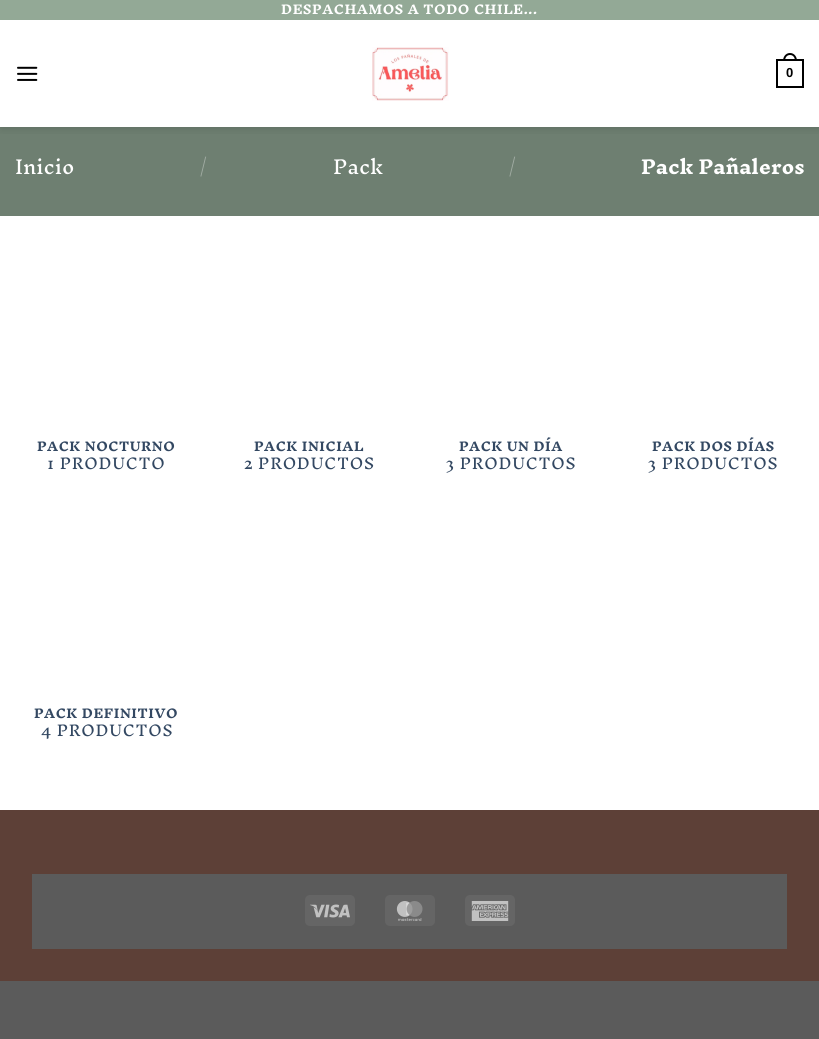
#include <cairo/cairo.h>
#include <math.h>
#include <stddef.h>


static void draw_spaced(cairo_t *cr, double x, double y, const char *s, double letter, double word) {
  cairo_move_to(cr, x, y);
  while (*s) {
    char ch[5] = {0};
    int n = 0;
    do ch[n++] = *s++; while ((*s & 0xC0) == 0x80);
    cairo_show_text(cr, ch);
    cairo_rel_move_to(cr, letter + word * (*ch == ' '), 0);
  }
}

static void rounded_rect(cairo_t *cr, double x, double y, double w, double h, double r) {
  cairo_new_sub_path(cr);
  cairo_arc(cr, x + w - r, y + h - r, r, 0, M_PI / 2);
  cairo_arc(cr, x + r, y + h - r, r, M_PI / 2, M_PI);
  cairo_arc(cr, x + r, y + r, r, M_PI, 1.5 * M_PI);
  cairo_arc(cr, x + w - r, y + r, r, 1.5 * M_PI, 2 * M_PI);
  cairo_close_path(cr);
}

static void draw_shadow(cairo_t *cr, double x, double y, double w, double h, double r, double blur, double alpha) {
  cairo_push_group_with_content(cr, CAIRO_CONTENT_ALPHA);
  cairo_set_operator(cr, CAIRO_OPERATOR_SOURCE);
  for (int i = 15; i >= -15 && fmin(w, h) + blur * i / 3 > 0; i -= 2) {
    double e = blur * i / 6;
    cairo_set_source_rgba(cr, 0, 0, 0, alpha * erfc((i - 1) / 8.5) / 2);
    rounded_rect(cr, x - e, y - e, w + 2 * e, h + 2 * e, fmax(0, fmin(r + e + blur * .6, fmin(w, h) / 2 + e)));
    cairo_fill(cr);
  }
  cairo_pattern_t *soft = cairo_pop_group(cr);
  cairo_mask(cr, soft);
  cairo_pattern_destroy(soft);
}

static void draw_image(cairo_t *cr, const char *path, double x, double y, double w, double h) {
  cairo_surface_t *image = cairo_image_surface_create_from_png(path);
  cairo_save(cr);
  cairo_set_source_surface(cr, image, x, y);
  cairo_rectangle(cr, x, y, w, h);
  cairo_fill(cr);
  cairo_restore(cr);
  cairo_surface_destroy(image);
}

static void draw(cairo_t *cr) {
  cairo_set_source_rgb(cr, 91 / 255.0, 91 / 255.0, 91 / 255.0);
  cairo_paint(cr);
  cairo_set_source_rgb(cr, 1, 1, 1);
  cairo_rectangle(cr, 0, 20, 819, 790);
  cairo_fill(cr);
  cairo_set_source_rgb(cr, 110 / 255.0, 127 / 255.0, 113 / 255.0);
  cairo_rectangle(cr, 0, 127, 819, 89);
  cairo_fill(cr);
  cairo_save(cr);
  cairo_rectangle(cr, 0, 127, 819, 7);
  cairo_clip(cr);
  cairo_set_source_rgb(cr, 0, 0, 0);
  draw_shadow(cr, 1, 1, 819, 127, 0, 5, 0.15);
  cairo_restore(cr);
  cairo_set_source_rgb(cr, 147 / 255.0, 169 / 255.0, 150 / 255.0);
  cairo_rectangle(cr, 0, 0, 819, 20);
  cairo_fill(cr);
  draw_image(cr, "images/1.png", 17, 66, 21, 15);
  draw_image(cr, "images/2.png", 372, 47, 77, 54);
  cairo_rectangle(cr, 777, 60, 26, 27);
  cairo_set_source_rgb(cr, 0, 0, 0);
  cairo_stroke(cr);
  cairo_set_fill_rule(cr, CAIRO_FILL_RULE_EVEN_ODD);
  cairo_new_path(cr);
  cairo_move_to(cr, 790, 53);
  cairo_curve_to(cr, 794.5, 53, 797, 57, 797, 61);
  cairo_line_to(cr, 783, 61);
  cairo_curve_to(cr, 783, 57, 785.5, 53, 790, 53);
  cairo_close_path(cr);
  cairo_move_to(cr, 790, 55);
  cairo_curve_to(cr, 793.5, 55, 795, 58, 795, 61);
  cairo_line_to(cr, 785, 61);
  cairo_curve_to(cr, 785, 58, 786.5, 55, 790, 55);
  cairo_close_path(cr);
  cairo_fill(cr);
  cairo_set_source_rgb(cr, 93 / 255.0, 64 / 255.0, 55 / 255.0);
  cairo_rectangle(cr, 0, 810, 819, 171);
  cairo_fill(cr);
  cairo_set_source_rgb(cr, 91 / 255.0, 91 / 255.0, 91 / 255.0);
  cairo_rectangle(cr, 32, 874, 755, 75);
  cairo_fill(cr);
  cairo_set_source_rgb(cr, 101 / 255.0, 101 / 255.0, 101 / 255.0);
  rounded_rect(cr, 305, 895, 50, 31, 5);
  cairo_fill(cr);
  draw_image(cr, "images/3.png", 310, 904, 40, 14);
  rounded_rect(cr, 385, 895, 50, 31, 5);
  cairo_fill(cr);
  draw_image(cr, "images/4.png", 396, 901, 27, 20);
  rounded_rect(cr, 465, 895, 50, 31, 5);
  cairo_fill(cr);
  draw_image(cr, "images/5.png", 471, 901, 38, 20);
  cairo_select_font_face(cr, "Inknut Antiqua", CAIRO_FONT_SLANT_NORMAL, CAIRO_FONT_WEIGHT_BOLD);
  cairo_set_font_size(cr, 12);
  cairo_set_source_rgb(cr, 1, 1, 1);
  draw_spaced(cr, 281, 14, "DESPACHAMOS A TODO CHILE...", 0.6, 0);
  cairo_select_font_face(cr, "Liberation Sans", CAIRO_FONT_SLANT_NORMAL, CAIRO_FONT_WEIGHT_BOLD);
  cairo_set_font_size(cr, 13);
  cairo_set_source_rgb(cr, 0, 0, 0);
  cairo_move_to(cr, 786, 77);
  cairo_show_text(cr, "0");
  cairo_select_font_face(cr, "Inknut Antiqua", CAIRO_FONT_SLANT_NORMAL, CAIRO_FONT_WEIGHT_NORMAL);
  cairo_set_font_size(cr, 18.5);
  cairo_set_source_rgb(cr, 1, 1, 1);
  cairo_move_to(cr, 15, 174);
  cairo_show_text(cr, "Inicio");
  cairo_select_font_face(cr, "Inknut Antiqua Light", CAIRO_FONT_SLANT_NORMAL, CAIRO_FONT_WEIGHT_NORMAL);
  cairo_set_source_rgb(cr, 161 / 255.0, 172 / 255.0, 163 / 255.0);
  cairo_move_to(cr, 200, 174);
  cairo_show_text(cr, "/");
  cairo_select_font_face(cr, "Inknut Antiqua", CAIRO_FONT_SLANT_NORMAL, CAIRO_FONT_WEIGHT_NORMAL);
  cairo_set_source_rgb(cr, 1, 1, 1);
  cairo_move_to(cr, 333, 174);
  cairo_show_text(cr, "Pack");
  cairo_select_font_face(cr, "Inknut Antiqua Light", CAIRO_FONT_SLANT_NORMAL, CAIRO_FONT_WEIGHT_NORMAL);
  cairo_set_source_rgb(cr, 161 / 255.0, 172 / 255.0, 163 / 255.0);
  cairo_move_to(cr, 509, 174);
  cairo_show_text(cr, "/");
  cairo_select_font_face(cr, "Inknut Antiqua", CAIRO_FONT_SLANT_NORMAL, CAIRO_FONT_WEIGHT_BOLD);
  cairo_set_source_rgb(cr, 1, 1, 1);
  cairo_move_to(cr, 641, 174);
  cairo_show_text(cr, "Pack Pañaleros");
  cairo_set_font_size(cr, 12);
  cairo_set_source_rgb(cr, 51 / 255.0, 72 / 255.0, 98 / 255.0);
  draw_spaced(cr, 37, 451, "PACK NOCTURNO", 0.6, 0);
  cairo_select_font_face(cr, "Inknut Antiqua", CAIRO_FONT_SLANT_NORMAL, CAIRO_FONT_WEIGHT_NORMAL);
  cairo_set_font_size(cr, 14.5);
  draw_spaced(cr, 47, 469, "1 PRODUCTO", 0.75, 0);
  cairo_select_font_face(cr, "Inknut Antiqua", CAIRO_FONT_SLANT_NORMAL, CAIRO_FONT_WEIGHT_BOLD);
  cairo_set_font_size(cr, 12);
  draw_spaced(cr, 254, 451, "PACK INICIAL", 0.6, 0);
  cairo_select_font_face(cr, "Inknut Antiqua", CAIRO_FONT_SLANT_NORMAL, CAIRO_FONT_WEIGHT_NORMAL);
  cairo_set_font_size(cr, 14.5);
  draw_spaced(cr, 244, 469, "2 PRODUCTOS", 0.75, 0);
  cairo_select_font_face(cr, "Inknut Antiqua", CAIRO_FONT_SLANT_NORMAL, CAIRO_FONT_WEIGHT_BOLD);
  cairo_set_font_size(cr, 12);
  draw_spaced(cr, 459, 451, "PACK UN DÍA", 0.6, 0);
  cairo_select_font_face(cr, "Inknut Antiqua", CAIRO_FONT_SLANT_NORMAL, CAIRO_FONT_WEIGHT_NORMAL);
  cairo_set_font_size(cr, 14.5);
  draw_spaced(cr, 446, 469, "3 PRODUCTOS", 0.75, 0);
  cairo_select_font_face(cr, "Inknut Antiqua", CAIRO_FONT_SLANT_NORMAL, CAIRO_FONT_WEIGHT_BOLD);
  cairo_set_font_size(cr, 12);
  draw_spaced(cr, 652, 451, "PACK DOS DÍAS", 0.6, 0);
  cairo_select_font_face(cr, "Inknut Antiqua", CAIRO_FONT_SLANT_NORMAL, CAIRO_FONT_WEIGHT_NORMAL);
  cairo_set_font_size(cr, 14.5);
  draw_spaced(cr, 648, 469, "3 PRODUCTOS", 0.75, 0);
  cairo_select_font_face(cr, "Inknut Antiqua", CAIRO_FONT_SLANT_NORMAL, CAIRO_FONT_WEIGHT_BOLD);
  cairo_set_font_size(cr, 12);
  draw_spaced(cr, 34, 718, "PACK DEFINITIVO", 0.6, 0);
  cairo_select_font_face(cr, "Inknut Antiqua", CAIRO_FONT_SLANT_NORMAL, CAIRO_FONT_WEIGHT_NORMAL);
  cairo_set_font_size(cr, 14.5);
  draw_spaced(cr, 41, 736, "4 PRODUCTOS", 0.75, 0);
}

int main(void) {
  cairo_surface_t *surface = cairo_image_surface_create(CAIRO_FORMAT_RGB24, 819, 1039);
  cairo_t *cr = cairo_create(surface);
  cairo_font_options_t *options = cairo_font_options_create();
  cairo_font_options_set_hint_metrics(options, CAIRO_HINT_METRICS_OFF);
  cairo_font_options_set_hint_style(options, CAIRO_HINT_STYLE_NONE);
  cairo_set_font_options(cr, options);
  cairo_set_miter_limit(cr, 4);
  draw(cr);
  cairo_surface_write_to_png(surface, "out.png");
  cairo_font_options_destroy(options);
  cairo_destroy(cr);
  cairo_surface_destroy(surface);
  return 0;
}
